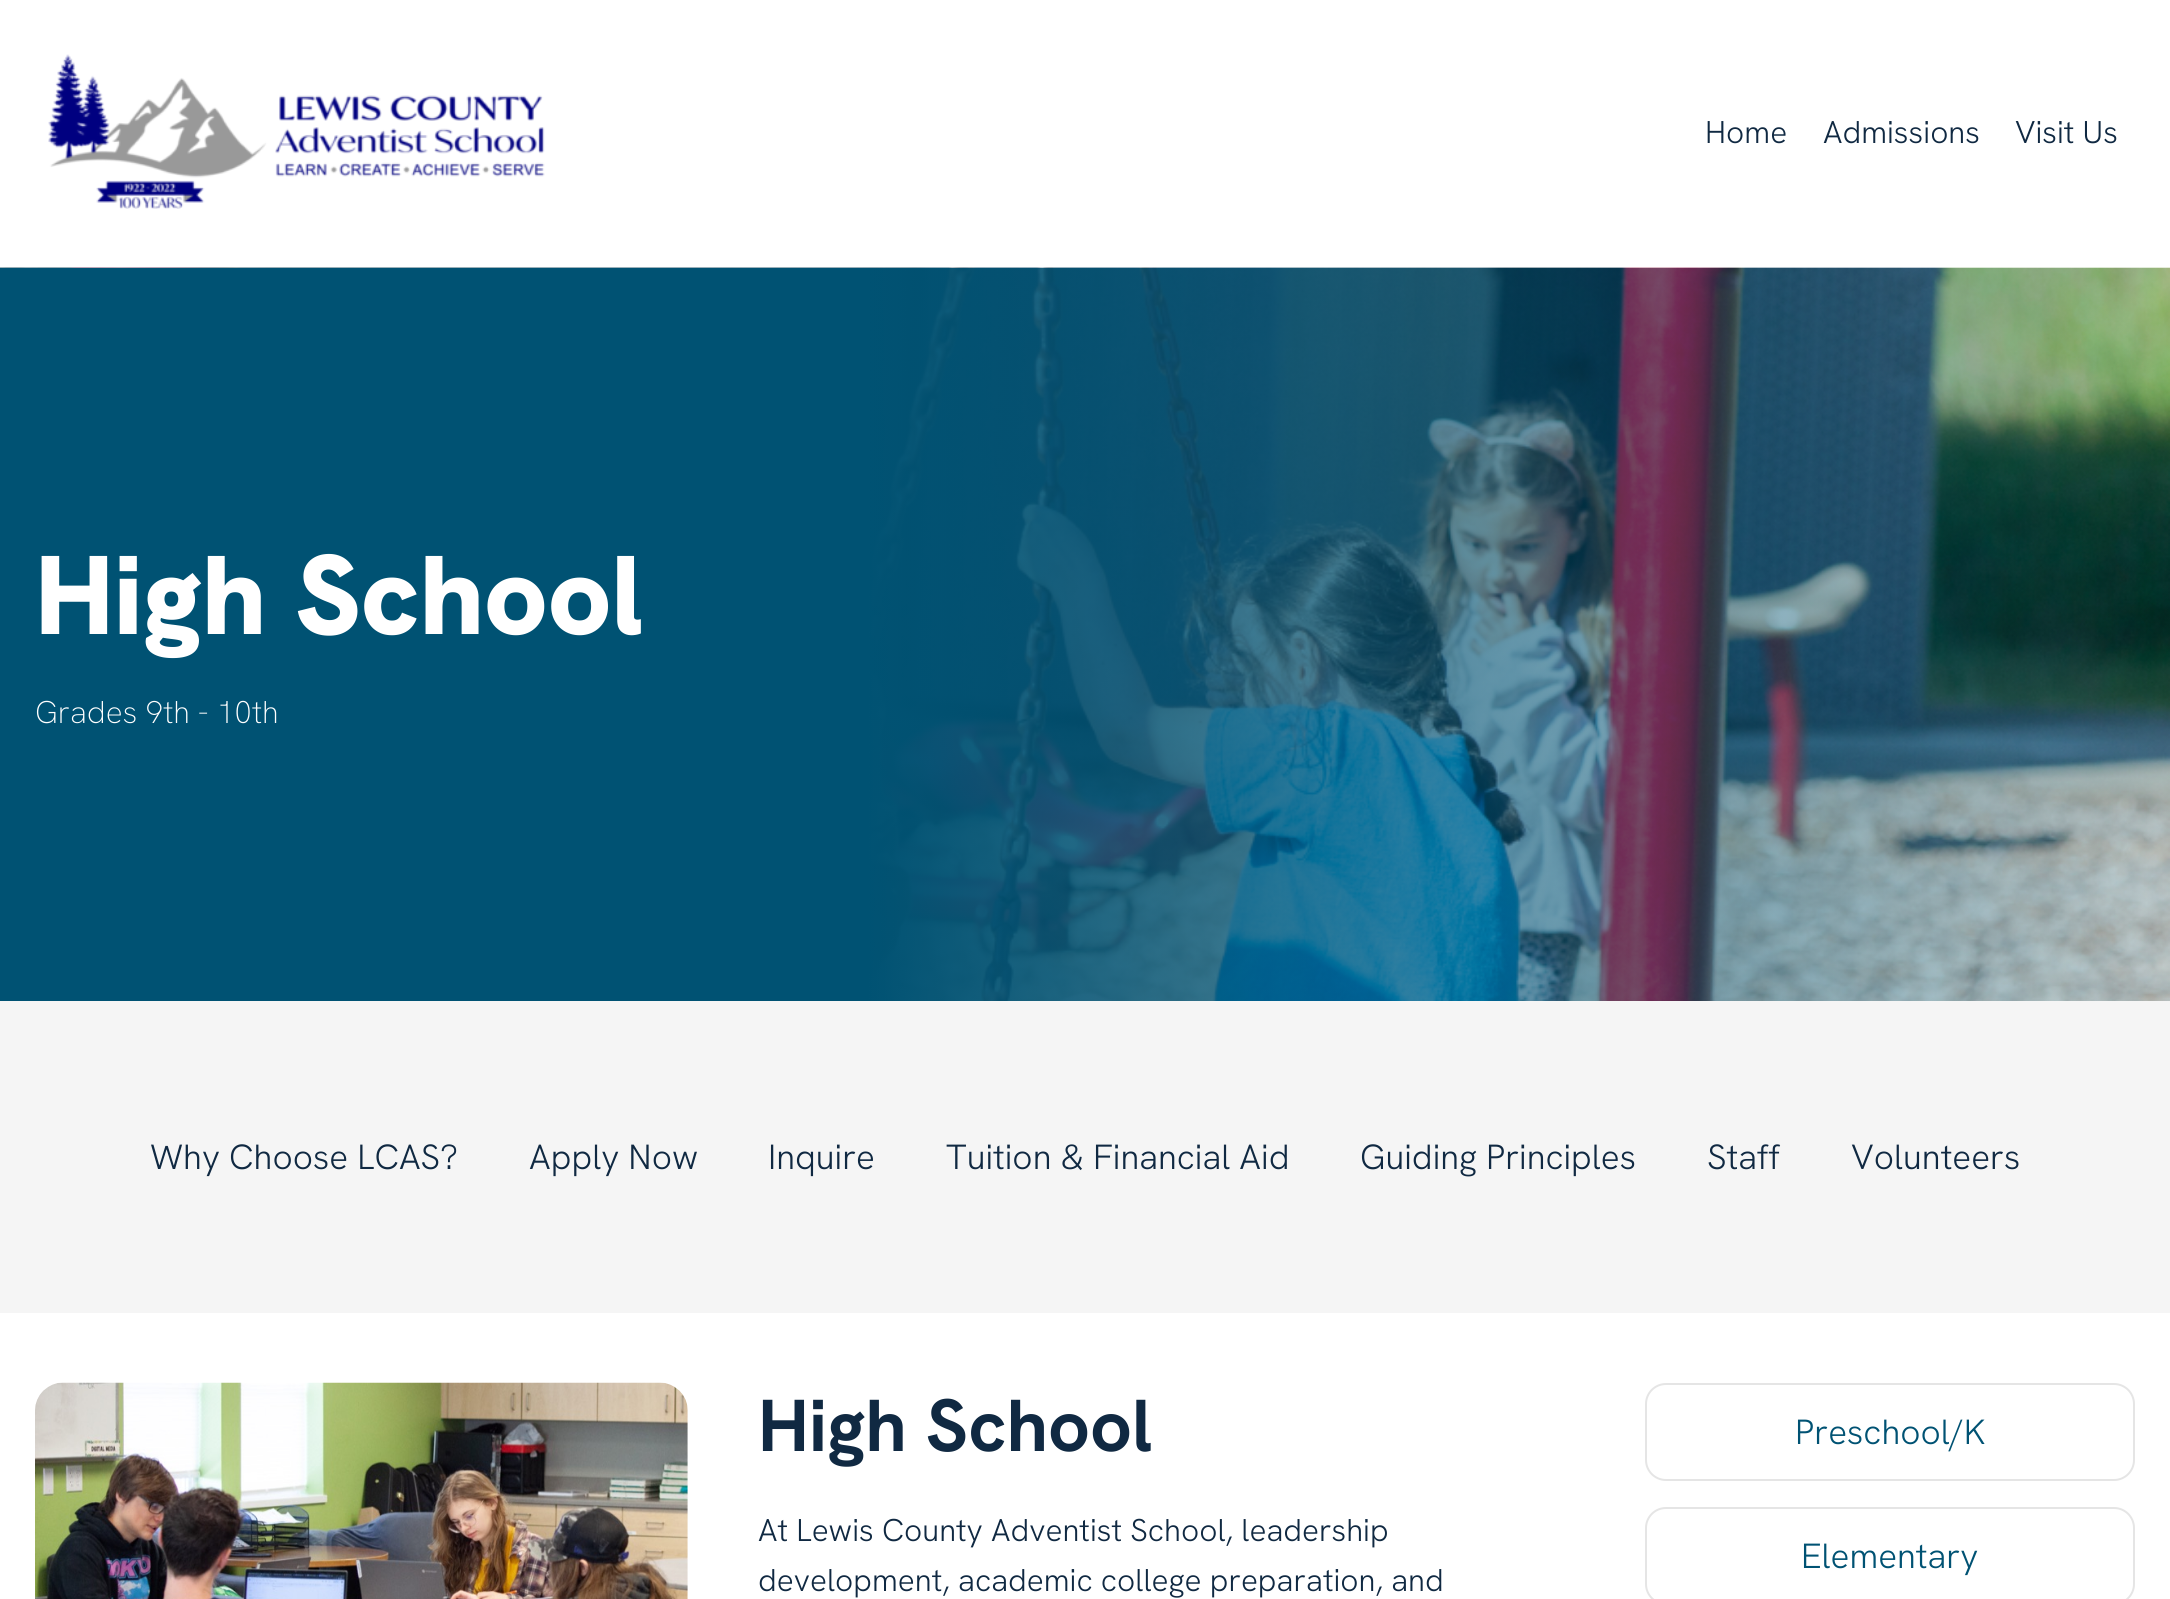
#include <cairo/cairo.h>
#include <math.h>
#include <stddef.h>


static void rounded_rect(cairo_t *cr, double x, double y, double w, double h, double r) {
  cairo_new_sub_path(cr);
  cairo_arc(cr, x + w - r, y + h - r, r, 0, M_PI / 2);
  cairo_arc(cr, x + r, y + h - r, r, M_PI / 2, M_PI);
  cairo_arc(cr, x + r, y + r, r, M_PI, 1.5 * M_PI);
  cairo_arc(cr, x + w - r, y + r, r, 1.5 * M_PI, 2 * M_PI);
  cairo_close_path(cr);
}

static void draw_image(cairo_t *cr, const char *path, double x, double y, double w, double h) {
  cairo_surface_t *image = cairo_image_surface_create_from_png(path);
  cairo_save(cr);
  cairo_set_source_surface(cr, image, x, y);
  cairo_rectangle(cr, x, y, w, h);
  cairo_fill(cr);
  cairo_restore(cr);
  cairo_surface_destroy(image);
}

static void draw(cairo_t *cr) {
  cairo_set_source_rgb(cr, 1, 1, 1);
  cairo_paint(cr);
  draw_image(cr, "images/1.png", 48, 54, 497, 155);
  draw_image(cr, "images/2.png", 0, 267, 2170, 734);
  cairo_set_source_rgb(cr, 245 / 255.0, 245 / 255.0, 245 / 255.0);
  cairo_rectangle(cr, 0, 1001, 2170, 312);
  cairo_fill(cr);
  draw_image(cr, "images/3.png", 35, 1382, 653, 217);
  rounded_rect(cr, 1646, 1384, 488, 96, 20);
  cairo_set_source_rgb(cr, 229 / 255.0, 229 / 255.0, 229 / 255.0);
  cairo_stroke(cr);
  rounded_rect(cr, 1646, 1508, 488, 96, 20);
  cairo_stroke(cr);
  cairo_select_font_face(cr, "Hanken Grotesk Light", CAIRO_FONT_SLANT_NORMAL, CAIRO_FONT_WEIGHT_NORMAL);
  cairo_set_font_size(cr, 31.5);
  cairo_set_source_rgb(cr, 16 / 255.0, 41 / 255.0, 66 / 255.0);
  cairo_move_to(cr, 1705, 143);
  cairo_show_text(cr, "Home");
  cairo_move_to(cr, 1823, 143);
  cairo_show_text(cr, "Admissions");
  cairo_move_to(cr, 2015, 143);
  cairo_show_text(cr, "Visit Us");
  cairo_select_font_face(cr, "Hanken Grotesk Black", CAIRO_FONT_SLANT_NORMAL, CAIRO_FONT_WEIGHT_NORMAL);
  cairo_set_font_size(cr, 112);
  cairo_set_source_rgb(cr, 1, 1, 1);
  cairo_move_to(cr, 35, 634);
  cairo_show_text(cr, "High School");
  cairo_select_font_face(cr, "Hanken Grotesk ExtraLight", CAIRO_FONT_SLANT_NORMAL, CAIRO_FONT_WEIGHT_NORMAL);
  cairo_set_font_size(cr, 31.5);
  cairo_move_to(cr, 35, 723);
  cairo_show_text(cr, "Grades 9th - 10th");
  cairo_select_font_face(cr, "Hanken Grotesk Light", CAIRO_FONT_SLANT_NORMAL, CAIRO_FONT_WEIGHT_NORMAL);
  cairo_set_font_size(cr, 35);
  cairo_set_source_rgb(cr, 16 / 255.0, 41 / 255.0, 66 / 255.0);
  cairo_move_to(cr, 150, 1169);
  cairo_show_text(cr, "Why Choose LCAS?");
  cairo_move_to(cr, 529, 1169);
  cairo_show_text(cr, "Apply Now");
  cairo_move_to(cr, 768, 1169);
  cairo_show_text(cr, "Inquire");
  cairo_move_to(cr, 946, 1169);
  cairo_show_text(cr, "Tuition & Financial Aid");
  cairo_move_to(cr, 1360, 1169);
  cairo_show_text(cr, "Guiding Principles");
  cairo_move_to(cr, 1707, 1169);
  cairo_show_text(cr, "Staff");
  cairo_move_to(cr, 1851, 1169);
  cairo_show_text(cr, "Volunteers");
  cairo_select_font_face(cr, "Hanken Grotesk", CAIRO_FONT_SLANT_NORMAL, CAIRO_FONT_WEIGHT_BOLD);
  cairo_set_font_size(cr, 73.5);
  cairo_move_to(cr, 758, 1451);
  cairo_show_text(cr, "High School");
  cairo_select_font_face(cr, "Hanken Grotesk Light", CAIRO_FONT_SLANT_NORMAL, CAIRO_FONT_WEIGHT_NORMAL);
  cairo_set_font_size(cr, 31.5);
  cairo_move_to(cr, 758, 1541);
  cairo_show_text(cr, "At Lewis County Adventist School, leadership");
  cairo_move_to(cr, 758, 1591);
  cairo_show_text(cr, "development, academic college preparation, and");
  cairo_set_font_size(cr, 35);
  cairo_set_source_rgb(cr, 0, 82 / 255.0, 115 / 255.0);
  cairo_move_to(cr, 1795, 1444);
  cairo_show_text(cr, "Preschool/K");
  cairo_move_to(cr, 1801, 1568);
  cairo_show_text(cr, "Elementary");
}

int main(void) {
  cairo_surface_t *surface = cairo_image_surface_create(CAIRO_FORMAT_RGB24, 2170, 1599);
  cairo_t *cr = cairo_create(surface);
  cairo_font_options_t *options = cairo_font_options_create();
  cairo_font_options_set_hint_metrics(options, CAIRO_HINT_METRICS_OFF);
  cairo_font_options_set_hint_style(options, CAIRO_HINT_STYLE_NONE);
  cairo_set_font_options(cr, options);
  cairo_set_miter_limit(cr, 4);
  draw(cr);
  cairo_surface_write_to_png(surface, "out.png");
  cairo_font_options_destroy(options);
  cairo_destroy(cr);
  cairo_surface_destroy(surface);
  return 0;
}
